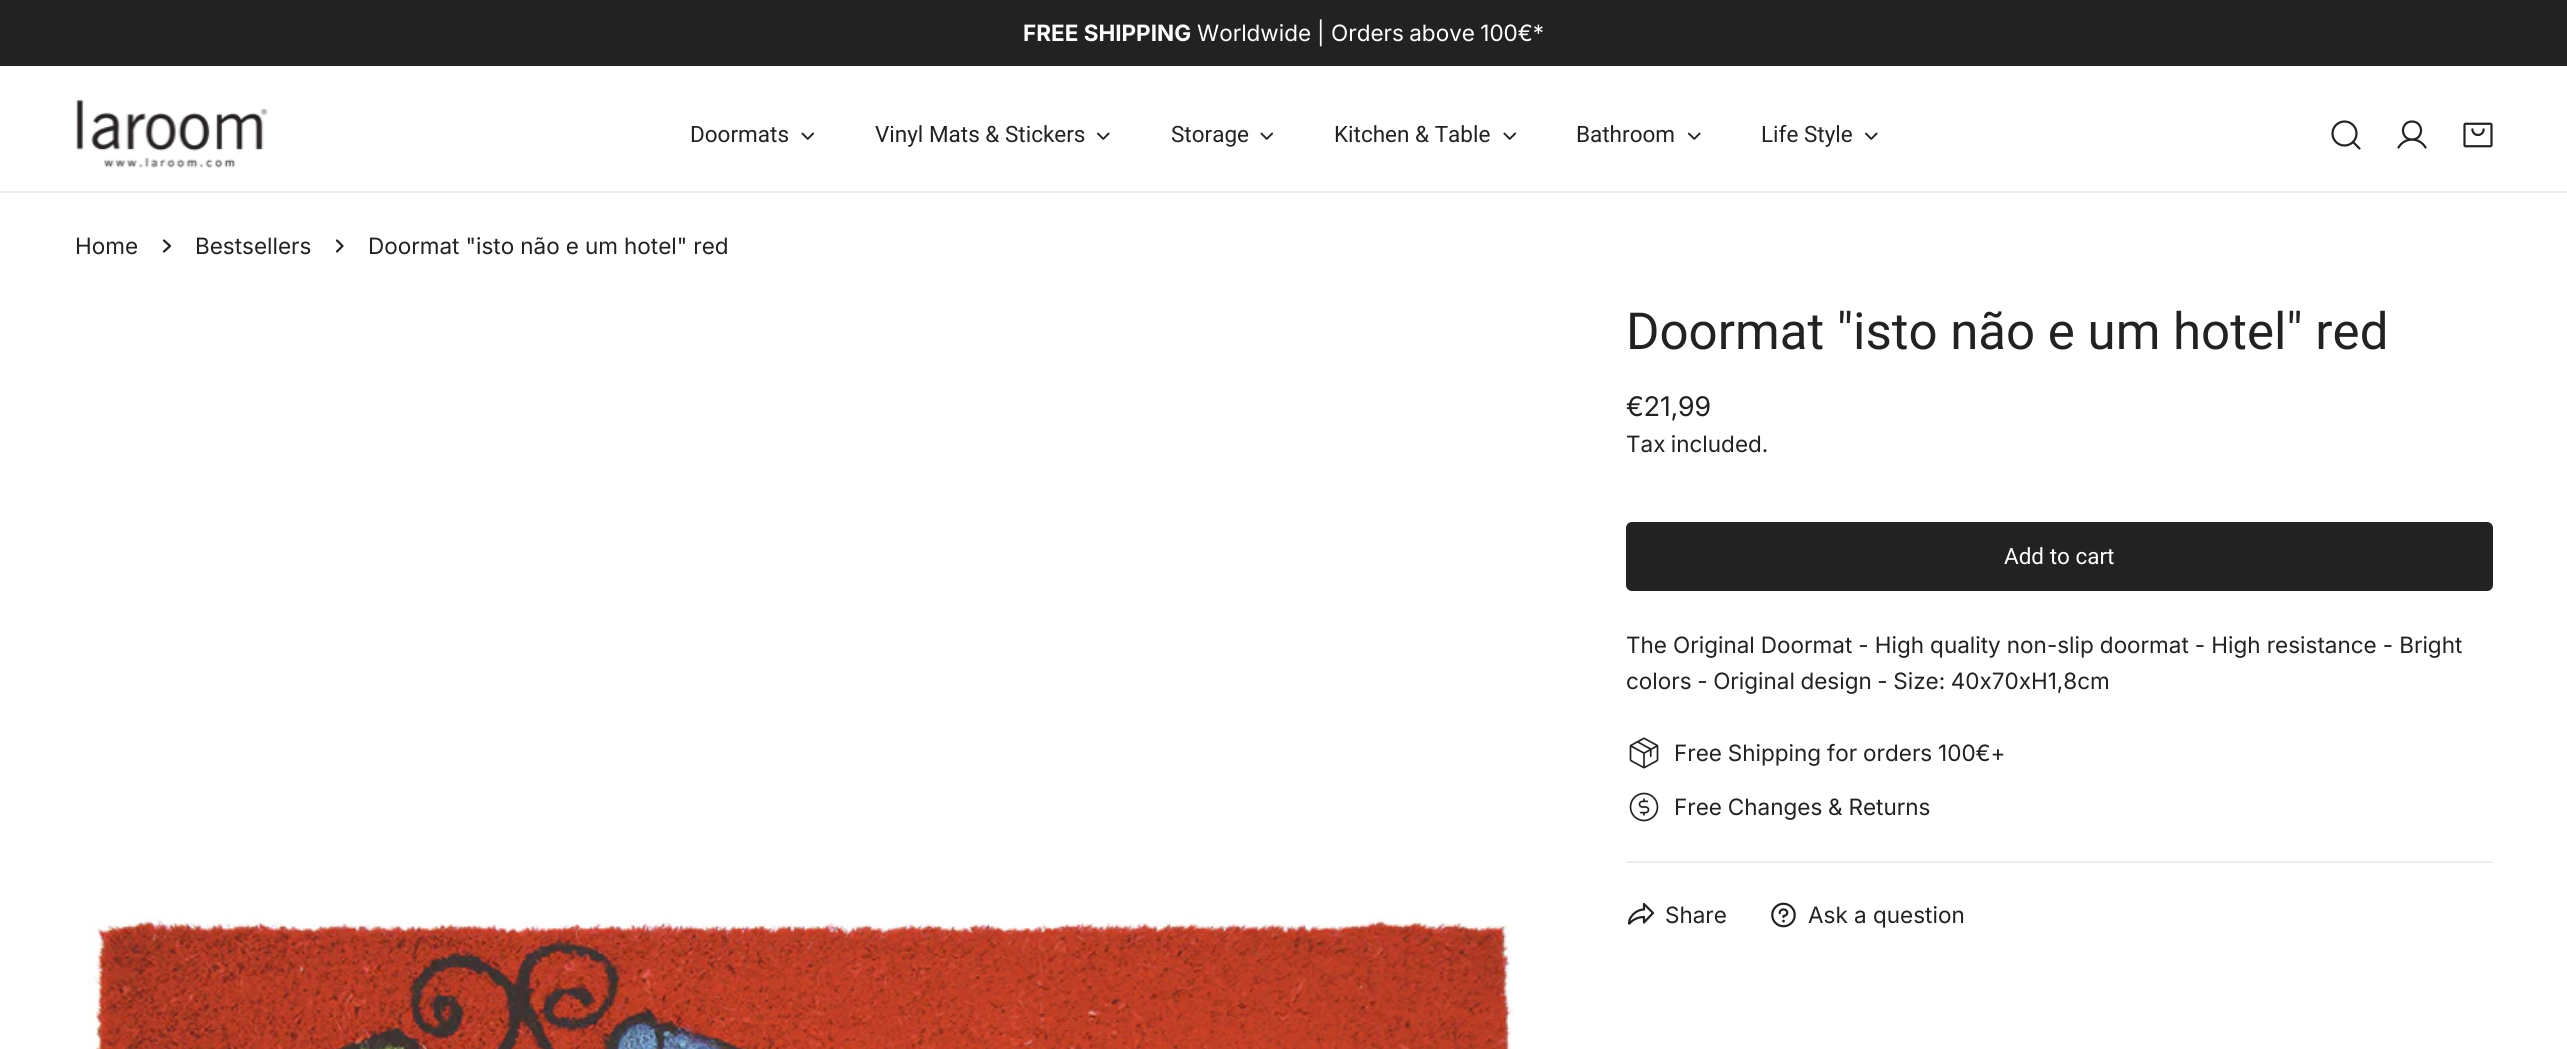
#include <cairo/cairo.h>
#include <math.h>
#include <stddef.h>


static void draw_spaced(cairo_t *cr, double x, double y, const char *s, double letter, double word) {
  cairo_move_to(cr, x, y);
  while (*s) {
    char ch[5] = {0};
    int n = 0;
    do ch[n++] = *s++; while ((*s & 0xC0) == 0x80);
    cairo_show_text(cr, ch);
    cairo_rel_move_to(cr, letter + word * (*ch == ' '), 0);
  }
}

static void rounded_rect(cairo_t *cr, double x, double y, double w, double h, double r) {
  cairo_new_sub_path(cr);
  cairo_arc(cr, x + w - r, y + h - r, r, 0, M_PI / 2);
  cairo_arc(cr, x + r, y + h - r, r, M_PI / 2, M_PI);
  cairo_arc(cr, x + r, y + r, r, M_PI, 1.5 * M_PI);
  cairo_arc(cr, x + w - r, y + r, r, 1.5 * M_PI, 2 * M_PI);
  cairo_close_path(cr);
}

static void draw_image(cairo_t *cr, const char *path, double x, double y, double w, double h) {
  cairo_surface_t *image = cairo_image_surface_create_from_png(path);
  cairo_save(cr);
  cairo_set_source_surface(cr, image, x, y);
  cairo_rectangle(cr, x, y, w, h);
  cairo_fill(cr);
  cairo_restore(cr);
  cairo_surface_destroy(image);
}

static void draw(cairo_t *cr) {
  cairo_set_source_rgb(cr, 1, 1, 1);
  cairo_paint(cr);
  cairo_set_source_rgb(cr, 34 / 255.0, 34 / 255.0, 34 / 255.0);
  cairo_rectangle(cr, 0, 0, 2567, 66);
  cairo_fill(cr);
  cairo_set_source_rgb(cr, 238 / 255.0, 238 / 255.0, 238 / 255.0);
  cairo_rectangle(cr, 0, 191, 2567, 2);
  cairo_fill(cr);
  draw_image(cr, "images/1.png", 76, 100, 192, 68);
  draw_image(cr, "images/2.png", 801, 132, 14, 8);
  draw_image(cr, "images/3.png", 1097, 132, 13, 8);
  draw_image(cr, "images/2.png", 1260, 132, 14, 8);
  draw_image(cr, "images/2.png", 1503, 132, 14, 8);
  draw_image(cr, "images/3.png", 1688, 132, 13, 8);
  draw_image(cr, "images/3.png", 1865, 132, 13, 8);
  cairo_arc(cr, 2344.5, 133.5, 12, 0, 2 * M_PI);
  cairo_set_source_rgb(cr, 34 / 255.0, 34 / 255.0, 34 / 255.0);
  cairo_set_line_width(cr, 2.2);
  cairo_stroke(cr);
  cairo_new_path(cr);
  cairo_move_to(cr, 2359.5, 148.5);
  cairo_line_to(cr, 2353, 142);
  cairo_set_line_cap(cr, CAIRO_LINE_CAP_ROUND);
  cairo_set_line_join(cr, CAIRO_LINE_JOIN_ROUND);
  cairo_stroke(cr);
  cairo_new_path(cr);
  cairo_move_to(cr, 2412, 139.5);
  cairo_curve_to(cr, 2424, 139.5, 2424, 121.5, 2412, 121.5);
  cairo_curve_to(cr, 2400, 121.5, 2400, 139.5, 2412, 139.5);
  cairo_close_path(cr);
  cairo_move_to(cr, 2398.5, 147.5);
  cairo_curve_to(cr, 2404.5, 137, 2419.5, 137, 2425.5, 147.5);
  cairo_stroke(cr);
  draw_image(cr, "images/4.png", 2463, 122, 30, 26);
  cairo_new_path(cr);
  cairo_move_to(cr, 164, 240.5);
  cairo_line_to(cr, 170, 246);
  cairo_line_to(cr, 164, 251.5);
  cairo_stroke(cr);
  cairo_new_path(cr);
  cairo_move_to(cr, 337, 240.5);
  cairo_line_to(cr, 342.5, 246);
  cairo_line_to(cr, 337, 251.5);
  cairo_stroke(cr);
  rounded_rect(cr, 1626, 522, 867, 69, 6);
  cairo_fill(cr);
  draw_image(cr, "images/5.png", 1629, 737, 30, 32);
  draw_image(cr, "images/6.png", 1629, 792, 30, 30);
  cairo_set_source_rgb(cr, 238 / 255.0, 238 / 255.0, 238 / 255.0);
  cairo_rectangle(cr, 1626, 861, 867, 2);
  cairo_fill(cr);
  cairo_new_path(cr);
  cairo_move_to(cr, 1629.5, 923.5);
  cairo_curve_to(cr, 1631.5, 921, 1636.5, 917, 1644, 917);
  cairo_line_to(cr, 1644, 922.5);
  cairo_line_to(cr, 1653, 913);
  cairo_line_to(cr, 1644, 904);
  cairo_line_to(cr, 1644, 909.5);
  cairo_curve_to(cr, 1637.5, 909.5, 1631.5, 914.5, 1629.5, 920);
  cairo_line_to(cr, 1629, 923.5);
  cairo_close_path(cr);
  cairo_set_source_rgb(cr, 34 / 255.0, 34 / 255.0, 34 / 255.0);
  cairo_stroke(cr);
  draw_image(cr, "images/7.png", 1771, 902, 25, 26);
  draw_image(cr, "images/8.png", 89, 914, 1425, 135);
  cairo_select_font_face(cr, "Inter", CAIRO_FONT_SLANT_NORMAL, CAIRO_FONT_WEIGHT_BOLD);
  cairo_set_font_size(cr, 22.5);
  cairo_set_source_rgb(cr, 1, 1, 1);
  cairo_move_to(cr, 1023, 41);
  cairo_show_text(cr, "FREE SHIPPING");
  cairo_select_font_face(cr, "Inter", CAIRO_FONT_SLANT_NORMAL, CAIRO_FONT_WEIGHT_NORMAL);
  cairo_move_to(cr, 1197, 41);
  cairo_show_text(cr, "Worldwide");
  cairo_move_to(cr, 1317, 41);
  cairo_show_text(cr, "|");
  draw_spaced(cr, 1331, 41, "Orders above 100€*", 0, -1);
  cairo_select_font_face(cr, "Roboto", CAIRO_FONT_SLANT_NORMAL, CAIRO_FONT_WEIGHT_NORMAL);
  cairo_set_source_rgb(cr, 34 / 255.0, 34 / 255.0, 34 / 255.0);
  cairo_move_to(cr, 690, 142);
  cairo_show_text(cr, "Doormats");
  cairo_move_to(cr, 875, 142);
  cairo_show_text(cr, "Vinyl Mats & Stickers");
  cairo_move_to(cr, 1171, 142);
  cairo_show_text(cr, "Storage");
  cairo_move_to(cr, 1334, 142);
  cairo_show_text(cr, "Kitchen & Table");
  cairo_move_to(cr, 1576, 142);
  cairo_show_text(cr, "Bathroom");
  cairo_move_to(cr, 1761, 142);
  cairo_show_text(cr, "Life Style");
  cairo_select_font_face(cr, "Inter", CAIRO_FONT_SLANT_NORMAL, CAIRO_FONT_WEIGHT_NORMAL);
  cairo_move_to(cr, 75, 254);
  cairo_show_text(cr, "Home");
  cairo_move_to(cr, 195, 254);
  cairo_show_text(cr, "Bestsellers");
  draw_spaced(cr, 368, 254, "Doormat \"isto não e um hotel\" red", 0, -0.25);
  cairo_select_font_face(cr, "Roboto", CAIRO_FONT_SLANT_NORMAL, CAIRO_FONT_WEIGHT_NORMAL);
  cairo_set_font_size(cr, 51);
  cairo_move_to(cr, 1626, 349);
  cairo_show_text(cr, "Doormat \"isto não e um hotel\" red");
  cairo_select_font_face(cr, "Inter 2", CAIRO_FONT_SLANT_NORMAL, CAIRO_FONT_WEIGHT_NORMAL);
  cairo_set_font_size(cr, 27);
  cairo_move_to(cr, 1626, 416);
  cairo_show_text(cr, "€21,99");
  cairo_select_font_face(cr, "Inter", CAIRO_FONT_SLANT_NORMAL, CAIRO_FONT_WEIGHT_NORMAL);
  cairo_set_font_size(cr, 22.5);
  draw_spaced(cr, 1626, 452, "Tax included.", 0, -1);
  cairo_select_font_face(cr, "Roboto", CAIRO_FONT_SLANT_NORMAL, CAIRO_FONT_WEIGHT_NORMAL);
  cairo_set_source_rgb(cr, 1, 1, 1);
  cairo_move_to(cr, 2004, 564);
  cairo_show_text(cr, "Add to cart");
  cairo_select_font_face(cr, "Inter", CAIRO_FONT_SLANT_NORMAL, CAIRO_FONT_WEIGHT_NORMAL);
  cairo_set_source_rgb(cr, 34 / 255.0, 34 / 255.0, 34 / 255.0);
  draw_spaced(cr, 1626, 653, "The Original Doormat - High quality non-slip doormat - High resistance - Bright", 0, -0.25);
  draw_spaced(cr, 1626, 689, "colors - Original design - Size: 40x70xH1,8cm", 0, -0.75);
  draw_spaced(cr, 1674, 761, "Free Shipping for orders 100€+", 0, -0.5);
  draw_spaced(cr, 1674, 815, "Free Changes & Returns", 0, -0.5);
  cairo_move_to(cr, 1665, 923);
  cairo_show_text(cr, "Share");
  cairo_move_to(cr, 1808, 923);
  cairo_show_text(cr, "Ask a question");
}

int main(void) {
  cairo_surface_t *surface = cairo_image_surface_create(CAIRO_FORMAT_RGB24, 2567, 1049);
  cairo_t *cr = cairo_create(surface);
  cairo_font_options_t *options = cairo_font_options_create();
  cairo_font_options_set_hint_metrics(options, CAIRO_HINT_METRICS_OFF);
  cairo_font_options_set_hint_style(options, CAIRO_HINT_STYLE_NONE);
  cairo_set_font_options(cr, options);
  cairo_set_miter_limit(cr, 4);
  draw(cr);
  cairo_surface_write_to_png(surface, "out.png");
  cairo_font_options_destroy(options);
  cairo_destroy(cr);
  cairo_surface_destroy(surface);
  return 0;
}
